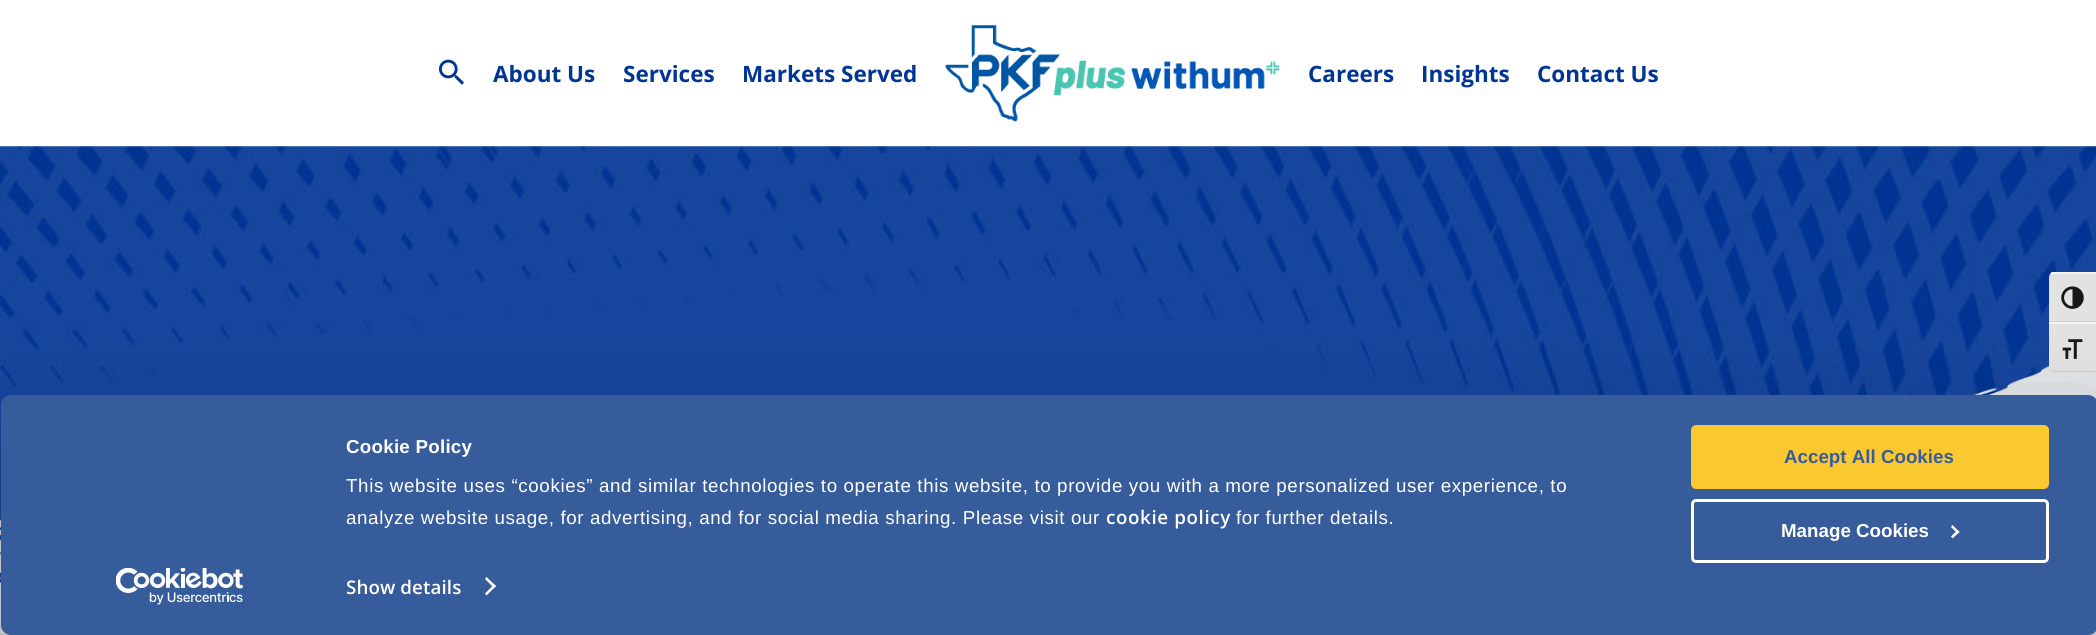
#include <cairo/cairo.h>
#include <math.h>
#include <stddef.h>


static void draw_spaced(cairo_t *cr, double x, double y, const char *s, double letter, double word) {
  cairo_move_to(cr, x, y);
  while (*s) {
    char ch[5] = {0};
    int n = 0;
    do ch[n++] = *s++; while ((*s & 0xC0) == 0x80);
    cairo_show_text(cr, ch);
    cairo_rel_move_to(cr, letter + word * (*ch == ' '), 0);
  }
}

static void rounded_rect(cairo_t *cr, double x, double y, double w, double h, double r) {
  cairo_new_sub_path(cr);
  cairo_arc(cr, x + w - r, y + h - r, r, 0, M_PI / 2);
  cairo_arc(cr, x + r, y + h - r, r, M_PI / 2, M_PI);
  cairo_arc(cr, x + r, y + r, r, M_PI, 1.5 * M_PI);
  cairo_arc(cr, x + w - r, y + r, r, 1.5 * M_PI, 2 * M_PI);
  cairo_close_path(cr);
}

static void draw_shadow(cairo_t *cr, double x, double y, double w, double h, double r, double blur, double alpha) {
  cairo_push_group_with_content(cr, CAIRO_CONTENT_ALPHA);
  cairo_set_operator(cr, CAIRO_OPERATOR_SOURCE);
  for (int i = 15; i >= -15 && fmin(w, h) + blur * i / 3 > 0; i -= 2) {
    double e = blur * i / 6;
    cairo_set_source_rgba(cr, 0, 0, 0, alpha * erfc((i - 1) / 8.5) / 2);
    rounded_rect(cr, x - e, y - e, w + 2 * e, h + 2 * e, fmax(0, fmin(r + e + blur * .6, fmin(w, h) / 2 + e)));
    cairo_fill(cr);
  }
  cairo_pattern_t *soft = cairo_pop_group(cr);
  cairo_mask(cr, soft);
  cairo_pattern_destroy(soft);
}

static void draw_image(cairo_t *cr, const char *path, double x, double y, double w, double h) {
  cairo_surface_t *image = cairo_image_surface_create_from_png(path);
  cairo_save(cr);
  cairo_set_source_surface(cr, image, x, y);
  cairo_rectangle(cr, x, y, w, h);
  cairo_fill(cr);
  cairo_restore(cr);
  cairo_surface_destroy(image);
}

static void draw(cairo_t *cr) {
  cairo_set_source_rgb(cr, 1, 1, 1);
  cairo_paint(cr);
  draw_image(cr, "images/1.png", 439, 59, 25, 26);
  draw_image(cr, "images/2.png", 945, 25, 335, 97);
  draw_image(cr, "images/3.png", 0, 146, 2096, 489);
  draw_image(cr, "images/4.png", 0, 366, 2096, 269);
  cairo_set_source_rgb(cr, 226 / 255.0, 226 / 255.0, 226 / 255.0);
  cairo_new_path(cr);
  cairo_move_to(cr, 2054, 273);
  cairo_line_to(cr, 2096, 273);
  cairo_line_to(cr, 2096, 323);
  cairo_line_to(cr, 2049, 323);
  cairo_line_to(cr, 2049, 278);
  cairo_curve_to(cr, 2049, 275, 2051, 273, 2054, 273);
  cairo_close_path(cr);
  cairo_fill(cr);
  cairo_set_source_rgb(cr, 245 / 255.0, 245 / 255.0, 245 / 255.0);
  cairo_new_path(cr);
  cairo_move_to(cr, 2054, 274);
  cairo_line_to(cr, 2096, 274);
  cairo_line_to(cr, 2096, 272);
  cairo_line_to(cr, 2052, 272);
  cairo_curve_to(cr, 2050, 273, 2049, 276, 2049, 278);
  cairo_curve_to(cr, 2049, 275, 2051, 274, 2054, 274);
  cairo_close_path(cr);
  cairo_fill(cr);
  cairo_set_source_rgb(cr, 210 / 255.0, 210 / 255.0, 210 / 255.0);
  cairo_rectangle(cr, 2049, 321, 47, 1);
  cairo_fill(cr);
  draw_image(cr, "images/5.png", 2061, 286, 23, 23);
  cairo_set_source_rgb(cr, 226 / 255.0, 226 / 255.0, 226 / 255.0);
  cairo_new_path(cr);
  cairo_move_to(cr, 2049, 323);
  cairo_line_to(cr, 2096, 323);
  cairo_line_to(cr, 2096, 373);
  cairo_line_to(cr, 2054, 373);
  cairo_curve_to(cr, 2051, 373, 2049, 371, 2049, 368);
  cairo_close_path(cr);
  cairo_fill(cr);
  cairo_set_source_rgb(cr, 245 / 255.0, 245 / 255.0, 245 / 255.0);
  cairo_rectangle(cr, 2049, 322, 47, 2);
  cairo_fill(cr);
  cairo_set_source_rgb(cr, 210 / 255.0, 210 / 255.0, 210 / 255.0);
  cairo_new_path(cr);
  cairo_move_to(cr, 2096, 372);
  cairo_line_to(cr, 2096, 371);
  cairo_line_to(cr, 2054, 371);
  cairo_curve_to(cr, 2051, 371, 2049, 370, 2049, 368);
  cairo_curve_to(cr, 2049, 370, 2051, 372, 2054, 372);
  cairo_close_path(cr);
  cairo_fill(cr);
  draw_image(cr, "images/6.png", 2062, 339, 21, 20);
  cairo_set_source_rgb(cr, 0, 0, 0);
  draw_shadow(cr, 1, 433, 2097, 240, 10, 44, 0.3);
  cairo_set_source_rgb(cr, 55 / 255.0, 92 / 255.0, 155 / 255.0);
  rounded_rect(cr, 1, 395, 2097, 240, 10);
  cairo_fill(cr);
  cairo_set_source_rgb(cr, 1, 1, 1);
  cairo_new_path(cr);
  cairo_move_to(cr, 486.5, 577);
  cairo_line_to(cr, 496, 586);
  cairo_line_to(cr, 494, 588);
  cairo_line_to(cr, 485, 579);
  cairo_close_path(cr);
  cairo_fill(cr);
  cairo_new_path(cr);
  cairo_move_to(cr, 494, 584.5);
  cairo_line_to(cr, 496, 586);
  cairo_line_to(cr, 486.5, 595.5);
  cairo_line_to(cr, 485, 593.5);
  cairo_close_path(cr);
  cairo_fill(cr);
  cairo_set_source_rgb(cr, 250 / 255.0, 201 / 255.0, 47 / 255.0);
  rounded_rect(cr, 1692.5, 426.5, 355, 61, 3.5);
  cairo_fill_preserve(cr);
  cairo_set_line_width(cr, 3);
  cairo_stroke(cr);
  rounded_rect(cr, 1692.5, 500.5, 355, 61, 3.5);
  cairo_set_source_rgb(cr, 1, 1, 1);
  cairo_stroke(cr);
  cairo_new_path(cr);
  cairo_move_to(cr, 1952.5, 525);
  cairo_line_to(cr, 1959.5, 532);
  cairo_line_to(cr, 1957.5, 533.5);
  cairo_line_to(cr, 1951, 527);
  cairo_close_path(cr);
  cairo_fill(cr);
  cairo_new_path(cr);
  cairo_move_to(cr, 1957.5, 530);
  cairo_line_to(cr, 1959.5, 532);
  cairo_line_to(cr, 1952.5, 538.5);
  cairo_line_to(cr, 1951, 536.5);
  cairo_close_path(cr);
  cairo_fill(cr);
  draw_image(cr, "images/7.png", 116, 568, 127, 37);
  cairo_select_font_face(cr, "Open Sans", CAIRO_FONT_SLANT_NORMAL, CAIRO_FONT_WEIGHT_BOLD);
  cairo_set_font_size(cr, 22.5);
  cairo_set_source_rgb(cr, 0, 53 / 255.0, 148 / 255.0);
  cairo_move_to(cr, 493, 82);
  cairo_show_text(cr, "About Us");
  cairo_move_to(cr, 623, 82);
  cairo_show_text(cr, "Services");
  cairo_move_to(cr, 742, 82);
  cairo_show_text(cr, "Markets Served");
  cairo_move_to(cr, 1308, 82);
  cairo_show_text(cr, "Careers");
  cairo_move_to(cr, 1421, 82);
  cairo_show_text(cr, "Insights");
  cairo_move_to(cr, 1537, 82);
  cairo_show_text(cr, "Contact Us");
  cairo_select_font_face(cr, "Liberation Sans", CAIRO_FONT_SLANT_NORMAL, CAIRO_FONT_WEIGHT_BOLD);
  cairo_set_font_size(cr, 18.75);
  cairo_set_source_rgb(cr, 1, 1, 1);
  draw_spaced(cr, 346, 453, "Cookie Policy", 0.25, 0);
  cairo_select_font_face(cr, "Liberation Sans", CAIRO_FONT_SLANT_NORMAL, CAIRO_FONT_WEIGHT_NORMAL);
  draw_spaced(cr, 346, 492, "This website uses “cookies” and similar technologies to operate this website, to provide you with a more personalized user experience, to", 0.62, 0);
  draw_spaced(cr, 346, 524, "analyze website usage, for advertising, and for social media sharing. Please visit our", 0.62, 0);
  cairo_select_font_face(cr, "Open Sans SemiBold", CAIRO_FONT_SLANT_NORMAL, CAIRO_FONT_WEIGHT_NORMAL);
  draw_spaced(cr, 1106, 524, "cookie policy", 0.62, 0);
  cairo_select_font_face(cr, "Liberation Sans", CAIRO_FONT_SLANT_NORMAL, CAIRO_FONT_WEIGHT_NORMAL);
  draw_spaced(cr, 1236, 524, "for further details.", 0.62, 0);
  cairo_select_font_face(cr, "Open Sans SemiBold", CAIRO_FONT_SLANT_NORMAL, CAIRO_FONT_WEIGHT_NORMAL);
  draw_spaced(cr, 346, 594, "Show details", 0.1, 0);
  cairo_select_font_face(cr, "Liberation Sans", CAIRO_FONT_SLANT_NORMAL, CAIRO_FONT_WEIGHT_BOLD);
  cairo_set_source_rgb(cr, 55 / 255.0, 92 / 255.0, 155 / 255.0);
  cairo_move_to(cr, 1784, 463);
  cairo_show_text(cr, "Accept All Cookies");
  cairo_set_source_rgb(cr, 1, 1, 1);
  cairo_move_to(cr, 1781, 537);
  cairo_show_text(cr, "Manage Cookies");
}

int main(void) {
  cairo_surface_t *surface = cairo_image_surface_create(CAIRO_FORMAT_RGB24, 2096, 635);
  cairo_t *cr = cairo_create(surface);
  cairo_font_options_t *options = cairo_font_options_create();
  cairo_font_options_set_hint_metrics(options, CAIRO_HINT_METRICS_OFF);
  cairo_font_options_set_hint_style(options, CAIRO_HINT_STYLE_NONE);
  cairo_set_font_options(cr, options);
  cairo_set_miter_limit(cr, 4);
  draw(cr);
  cairo_surface_write_to_png(surface, "out.png");
  cairo_font_options_destroy(options);
  cairo_destroy(cr);
  cairo_surface_destroy(surface);
  return 0;
}
